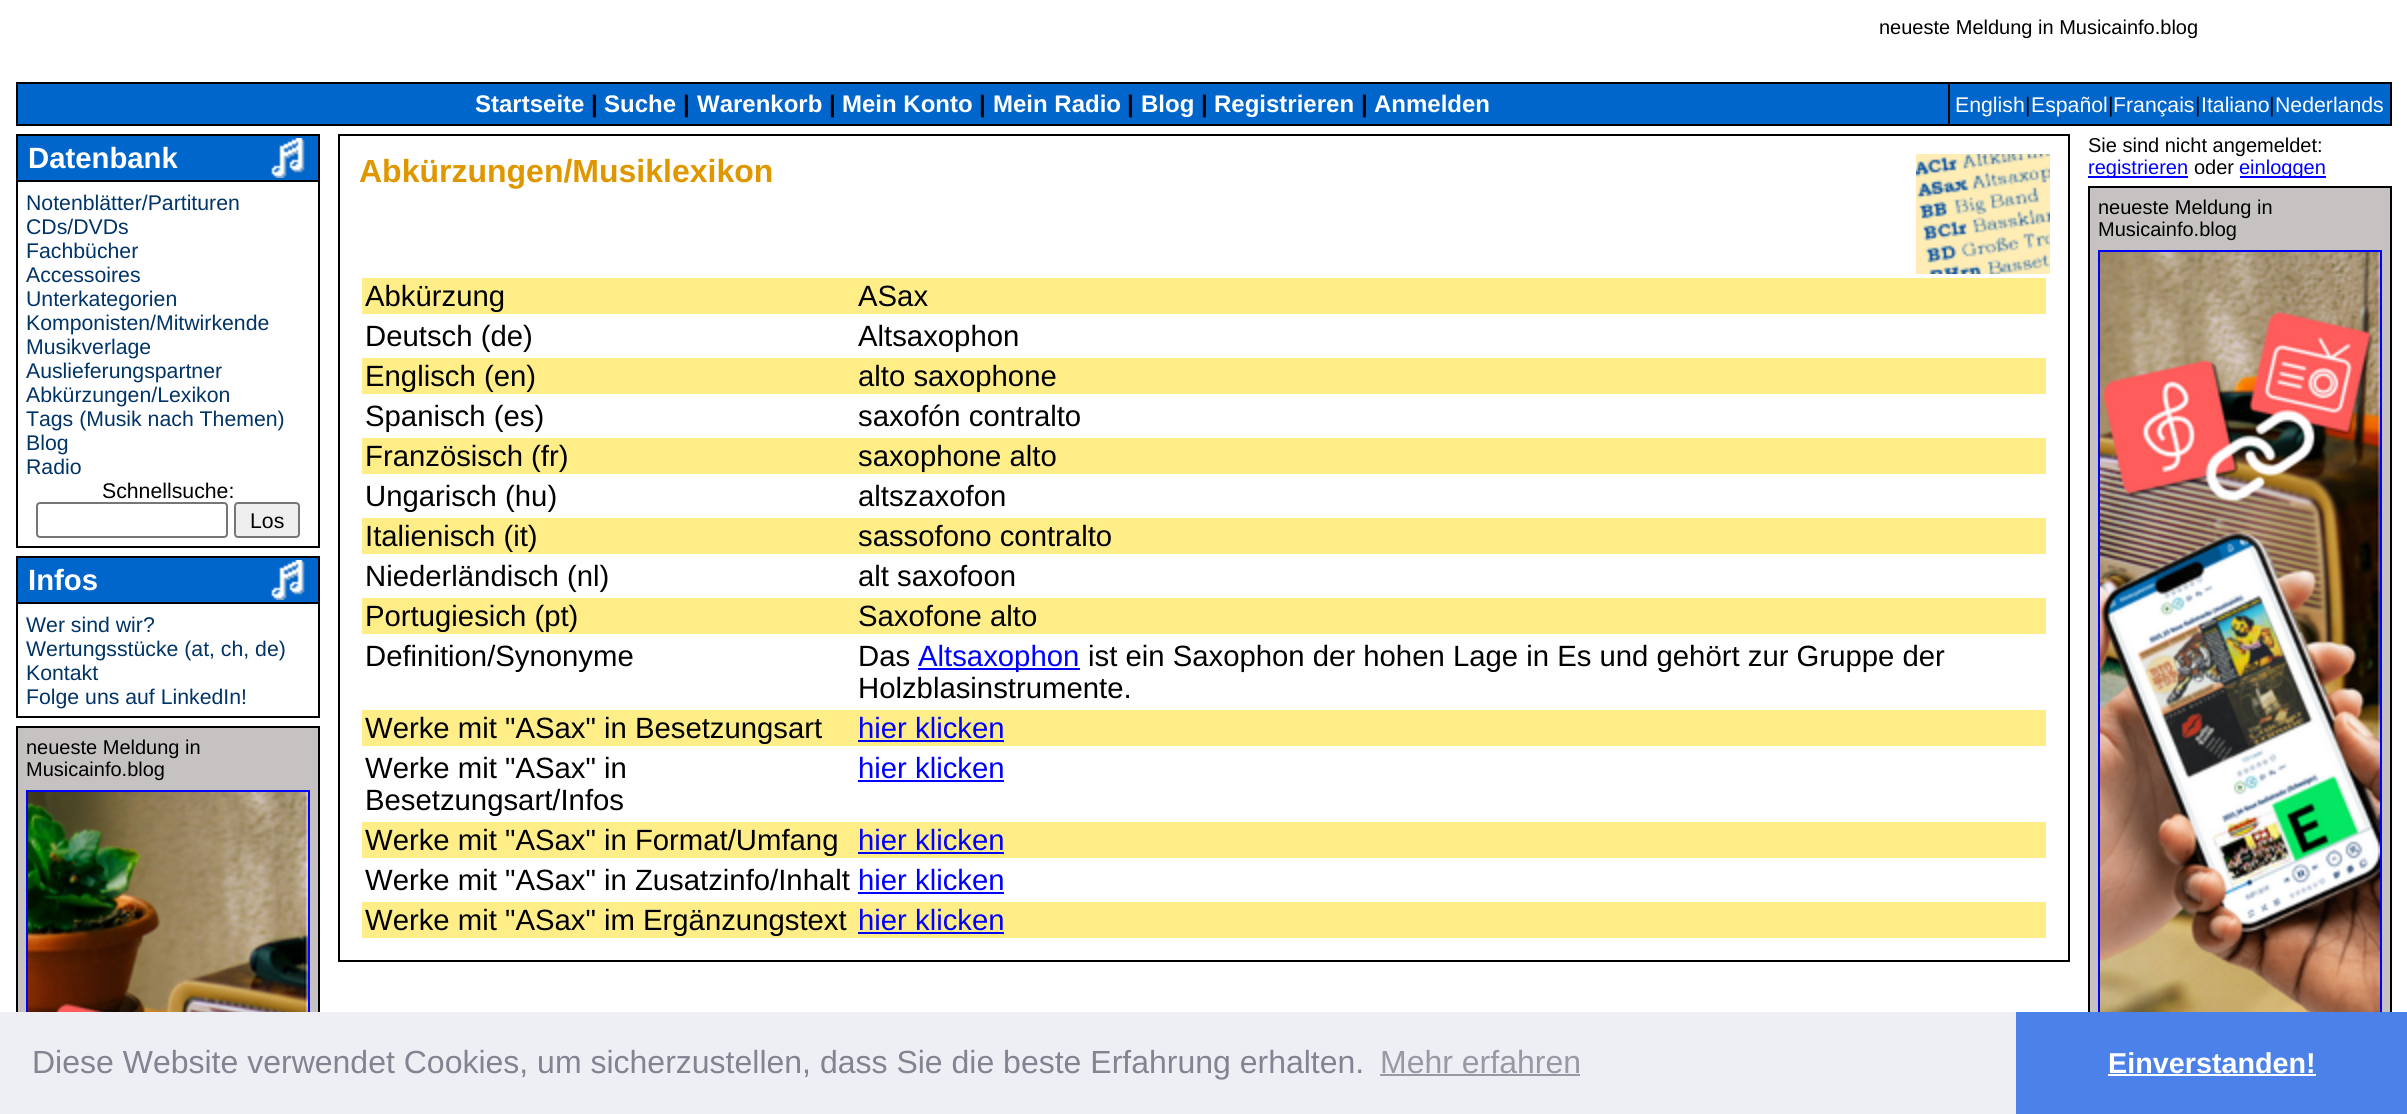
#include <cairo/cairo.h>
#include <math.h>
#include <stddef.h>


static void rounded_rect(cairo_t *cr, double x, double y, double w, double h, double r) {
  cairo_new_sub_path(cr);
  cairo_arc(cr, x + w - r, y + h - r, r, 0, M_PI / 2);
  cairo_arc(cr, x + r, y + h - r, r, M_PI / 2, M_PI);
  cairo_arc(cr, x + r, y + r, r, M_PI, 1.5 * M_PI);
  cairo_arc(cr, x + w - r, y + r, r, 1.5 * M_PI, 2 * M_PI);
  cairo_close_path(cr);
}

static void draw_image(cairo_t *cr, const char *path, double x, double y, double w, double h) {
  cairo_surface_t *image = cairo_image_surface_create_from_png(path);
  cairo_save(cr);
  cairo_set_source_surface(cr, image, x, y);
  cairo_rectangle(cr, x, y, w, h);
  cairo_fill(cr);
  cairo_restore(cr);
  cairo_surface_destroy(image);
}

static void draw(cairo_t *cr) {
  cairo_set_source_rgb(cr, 1, 1, 1);
  cairo_paint(cr);
  cairo_set_source_rgb(cr, 0, 0, 0);
  cairo_rectangle(cr, 16, 82, 2376, 44);
  cairo_fill(cr);
  cairo_set_source_rgb(cr, 0, 102 / 255.0, 204 / 255.0);
  cairo_rectangle(cr, 18, 84, 1930, 40);
  cairo_fill(cr);
  cairo_rectangle(cr, 1950, 84, 440, 40);
  cairo_fill(cr);
  cairo_set_source_rgb(cr, 0, 0, 0);
  cairo_rectangle(cr, 16, 134, 304, 414);
  cairo_fill(cr);
  cairo_set_source_rgb(cr, 0, 102 / 255.0, 204 / 255.0);
  cairo_rectangle(cr, 18, 136, 300, 44);
  cairo_fill(cr);
  draw_image(cr, "images/1.png", 271, 138, 34, 40);
  cairo_set_source_rgb(cr, 1, 1, 1);
  cairo_rectangle(cr, 18, 182, 300, 364);
  cairo_fill(cr);
  rounded_rect(cr, 37, 503, 190, 34, 3);
  cairo_set_source_rgb(cr, 118 / 255.0, 118 / 255.0, 118 / 255.0);
  cairo_stroke(cr);
  cairo_set_source_rgb(cr, 239 / 255.0, 239 / 255.0, 239 / 255.0);
  rounded_rect(cr, 235, 503, 64, 34, 3);
  cairo_fill_preserve(cr);
  cairo_set_source_rgb(cr, 118 / 255.0, 118 / 255.0, 118 / 255.0);
  cairo_stroke(cr);
  cairo_set_source_rgb(cr, 0, 0, 0);
  cairo_rectangle(cr, 16, 556, 304, 162);
  cairo_fill(cr);
  cairo_set_source_rgb(cr, 0, 102 / 255.0, 204 / 255.0);
  cairo_rectangle(cr, 18, 558, 300, 44);
  cairo_fill(cr);
  draw_image(cr, "images/1.png", 271, 560, 34, 40);
  cairo_set_source_rgb(cr, 1, 1, 1);
  cairo_rectangle(cr, 18, 604, 300, 112);
  cairo_fill(cr);
  cairo_set_source_rgb(cr, 0, 0, 0);
  cairo_rectangle(cr, 16, 726, 304, 286);
  cairo_fill(cr);
  cairo_set_source_rgb(cr, 198 / 255.0, 194 / 255.0, 194 / 255.0);
  cairo_rectangle(cr, 18, 728, 300, 284);
  cairo_fill(cr);
  cairo_rectangle(cr, 27, 791, 282, 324);
  cairo_set_source_rgb(cr, 0, 0, 1);
  cairo_stroke(cr);
  draw_image(cr, "images/2.png", 28, 792, 280, 220);
  cairo_set_source_rgb(cr, 0, 0, 0);
  cairo_rectangle(cr, 338, 134, 1732, 828);
  cairo_fill(cr);
  cairo_set_source_rgb(cr, 1, 1, 1);
  cairo_rectangle(cr, 340, 136, 1728, 824);
  cairo_fill(cr);
  draw_image(cr, "images/3.png", 1916, 154, 134, 120);
  cairo_set_source_rgb(cr, 1, 238 / 255.0, 136 / 255.0);
  cairo_rectangle(cr, 362, 278, 1684, 36);
  cairo_fill(cr);
  cairo_rectangle(cr, 362, 358, 1684, 36);
  cairo_fill(cr);
  cairo_rectangle(cr, 362, 438, 1684, 36);
  cairo_fill(cr);
  cairo_rectangle(cr, 362, 518, 1684, 36);
  cairo_fill(cr);
  cairo_rectangle(cr, 362, 598, 1684, 36);
  cairo_fill(cr);
  cairo_set_source_rgb(cr, 0, 0, 1);
  cairo_rectangle(cr, 918, 668, 162, 2);
  cairo_fill(cr);
  cairo_set_source_rgb(cr, 1, 238 / 255.0, 136 / 255.0);
  cairo_rectangle(cr, 362, 710, 1684, 36);
  cairo_fill(cr);
  cairo_set_source_rgb(cr, 0, 0, 1);
  cairo_rectangle(cr, 858, 740, 146, 2);
  cairo_fill(cr);
  cairo_rectangle(cr, 858, 780, 146, 2);
  cairo_fill(cr);
  cairo_set_source_rgb(cr, 1, 238 / 255.0, 136 / 255.0);
  cairo_rectangle(cr, 362, 822, 1684, 36);
  cairo_fill(cr);
  cairo_set_source_rgb(cr, 0, 0, 1);
  cairo_rectangle(cr, 858, 852, 146, 2);
  cairo_fill(cr);
  cairo_rectangle(cr, 858, 892, 146, 2);
  cairo_fill(cr);
  cairo_set_source_rgb(cr, 1, 238 / 255.0, 136 / 255.0);
  cairo_rectangle(cr, 362, 902, 1684, 36);
  cairo_fill(cr);
  cairo_set_source_rgb(cr, 0, 0, 1);
  cairo_rectangle(cr, 858, 932, 146, 2);
  cairo_fill(cr);
  cairo_rectangle(cr, 2088, 176, 100, 2);
  cairo_fill(cr);
  cairo_rectangle(cr, 2240, 176, 86, 2);
  cairo_fill(cr);
  cairo_set_source_rgb(cr, 0, 0, 0);
  cairo_rectangle(cr, 2088, 186, 304, 826);
  cairo_fill(cr);
  cairo_set_source_rgb(cr, 198 / 255.0, 194 / 255.0, 194 / 255.0);
  cairo_rectangle(cr, 2090, 188, 300, 824);
  cairo_fill(cr);
  cairo_rectangle(cr, 2099, 251, 282, 802);
  cairo_set_source_rgb(cr, 0, 0, 1);
  cairo_stroke(cr);
  draw_image(cr, "images/4.png", 2100, 252, 280, 760);
  cairo_set_source_rgb(cr, 237 / 255.0, 239 / 255.0, 245 / 255.0);
  cairo_rectangle(cr, 0, 1012, 2016, 102);
  cairo_fill(cr);
  cairo_set_source_rgb(cr, 152 / 255.0, 153 / 255.0, 165 / 255.0);
  cairo_rectangle(cr, 1380, 1074, 200, 2);
  cairo_fill(cr);
  cairo_set_source_rgb(cr, 75 / 255.0, 129 / 255.0, 232 / 255.0);
  cairo_rectangle(cr, 2016, 1012, 391, 102);
  cairo_fill(cr);
  cairo_set_source_rgb(cr, 1, 1, 1);
  cairo_rectangle(cr, 2108, 1074, 208, 2);
  cairo_fill(cr);
  cairo_select_font_face(cr, "Liberation Sans", CAIRO_FONT_SLANT_NORMAL, CAIRO_FONT_WEIGHT_NORMAL);
  cairo_set_font_size(cr, 20);
  cairo_set_source_rgb(cr, 0, 0, 0);
  cairo_move_to(cr, 1879, 34);
  cairo_show_text(cr, "neueste Meldung in Musicainfo.blog");
  cairo_select_font_face(cr, "Liberation Sans", CAIRO_FONT_SLANT_NORMAL, CAIRO_FONT_WEIGHT_BOLD);
  cairo_set_font_size(cr, 24);
  cairo_set_source_rgb(cr, 1, 1, 1);
  cairo_move_to(cr, 475, 112);
  cairo_show_text(cr, "Startseite");
  cairo_set_source_rgb(cr, 0, 0, 0);
  cairo_move_to(cr, 591, 112);
  cairo_show_text(cr, "|");
  cairo_set_source_rgb(cr, 1, 1, 1);
  cairo_move_to(cr, 604, 112);
  cairo_show_text(cr, "Suche");
  cairo_set_source_rgb(cr, 0, 0, 0);
  cairo_move_to(cr, 683, 112);
  cairo_show_text(cr, "|");
  cairo_set_source_rgb(cr, 1, 1, 1);
  cairo_move_to(cr, 697, 112);
  cairo_show_text(cr, "Warenkorb");
  cairo_set_source_rgb(cr, 0, 0, 0);
  cairo_move_to(cr, 829, 112);
  cairo_show_text(cr, "|");
  cairo_set_source_rgb(cr, 1, 1, 1);
  cairo_move_to(cr, 842, 112);
  cairo_show_text(cr, "Mein Konto");
  cairo_set_source_rgb(cr, 0, 0, 0);
  cairo_move_to(cr, 979, 112);
  cairo_show_text(cr, "|");
  cairo_set_source_rgb(cr, 1, 1, 1);
  cairo_move_to(cr, 993, 112);
  cairo_show_text(cr, "Mein Radio");
  cairo_set_source_rgb(cr, 0, 0, 0);
  cairo_move_to(cr, 1127, 112);
  cairo_show_text(cr, "|");
  cairo_set_source_rgb(cr, 1, 1, 1);
  cairo_move_to(cr, 1141, 112);
  cairo_show_text(cr, "Blog");
  cairo_set_source_rgb(cr, 0, 0, 0);
  cairo_move_to(cr, 1201, 112);
  cairo_show_text(cr, "|");
  cairo_set_source_rgb(cr, 1, 1, 1);
  cairo_move_to(cr, 1214, 112);
  cairo_show_text(cr, "Registrieren");
  cairo_set_source_rgb(cr, 0, 0, 0);
  cairo_move_to(cr, 1361, 112);
  cairo_show_text(cr, "|");
  cairo_set_source_rgb(cr, 1, 1, 1);
  cairo_move_to(cr, 1374, 112);
  cairo_show_text(cr, "Anmelden");
  cairo_select_font_face(cr, "Liberation Sans", CAIRO_FONT_SLANT_NORMAL, CAIRO_FONT_WEIGHT_NORMAL);
  cairo_set_font_size(cr, 21.25);
  cairo_move_to(cr, 1955, 112);
  cairo_show_text(cr, "English");
  cairo_set_source_rgb(cr, 0, 0, 0);
  cairo_move_to(cr, 2025, 112);
  cairo_show_text(cr, "|");
  cairo_set_source_rgb(cr, 1, 1, 1);
  cairo_move_to(cr, 2031, 112);
  cairo_show_text(cr, "Español");
  cairo_set_source_rgb(cr, 0, 0, 0);
  cairo_move_to(cr, 2108, 112);
  cairo_show_text(cr, "|");
  cairo_set_source_rgb(cr, 1, 1, 1);
  cairo_move_to(cr, 2113, 112);
  cairo_show_text(cr, "Français");
  cairo_set_source_rgb(cr, 0, 0, 0);
  cairo_move_to(cr, 2195, 112);
  cairo_show_text(cr, "|");
  cairo_set_source_rgb(cr, 1, 1, 1);
  cairo_move_to(cr, 2201, 112);
  cairo_show_text(cr, "Italiano");
  cairo_set_source_rgb(cr, 0, 0, 0);
  cairo_move_to(cr, 2269, 112);
  cairo_show_text(cr, "|");
  cairo_set_source_rgb(cr, 1, 1, 1);
  cairo_move_to(cr, 2275, 112);
  cairo_show_text(cr, "Nederlands");
  cairo_select_font_face(cr, "Liberation Sans", CAIRO_FONT_SLANT_NORMAL, CAIRO_FONT_WEIGHT_BOLD);
  cairo_set_font_size(cr, 29.3);
  cairo_move_to(cr, 28, 168);
  cairo_show_text(cr, "Datenbank");
  cairo_select_font_face(cr, "Liberation Sans", CAIRO_FONT_SLANT_NORMAL, CAIRO_FONT_WEIGHT_NORMAL);
  cairo_set_font_size(cr, 21.25);
  cairo_set_source_rgb(cr, 0, 51 / 255.0, 102 / 255.0);
  cairo_move_to(cr, 26, 210);
  cairo_show_text(cr, "Notenblätter/Partituren");
  cairo_move_to(cr, 26, 234);
  cairo_show_text(cr, "CDs/DVDs");
  cairo_move_to(cr, 26, 258);
  cairo_show_text(cr, "Fachbücher");
  cairo_move_to(cr, 26, 282);
  cairo_show_text(cr, "Accessoires");
  cairo_move_to(cr, 26, 306);
  cairo_show_text(cr, "Unterkategorien");
  cairo_move_to(cr, 26, 330);
  cairo_show_text(cr, "Komponisten/Mitwirkende");
  cairo_move_to(cr, 26, 354);
  cairo_show_text(cr, "Musikverlage");
  cairo_move_to(cr, 26, 378);
  cairo_show_text(cr, "Auslieferungspartner");
  cairo_move_to(cr, 26, 402);
  cairo_show_text(cr, "Abkürzungen/Lexikon");
  cairo_move_to(cr, 26, 426);
  cairo_show_text(cr, "Tags (Musik nach Themen)");
  cairo_move_to(cr, 26, 450);
  cairo_show_text(cr, "Blog");
  cairo_move_to(cr, 26, 474);
  cairo_show_text(cr, "Radio");
  cairo_set_source_rgb(cr, 0, 0, 0);
  cairo_move_to(cr, 102, 498);
  cairo_show_text(cr, "Schnellsuche:");
  cairo_move_to(cr, 250, 528);
  cairo_show_text(cr, "Los");
  cairo_select_font_face(cr, "Liberation Sans", CAIRO_FONT_SLANT_NORMAL, CAIRO_FONT_WEIGHT_BOLD);
  cairo_set_font_size(cr, 29.3);
  cairo_set_source_rgb(cr, 1, 1, 1);
  cairo_move_to(cr, 28, 590);
  cairo_show_text(cr, "Infos");
  cairo_select_font_face(cr, "Liberation Sans", CAIRO_FONT_SLANT_NORMAL, CAIRO_FONT_WEIGHT_NORMAL);
  cairo_set_font_size(cr, 21.25);
  cairo_set_source_rgb(cr, 0, 51 / 255.0, 102 / 255.0);
  cairo_move_to(cr, 26, 632);
  cairo_show_text(cr, "Wer sind wir?");
  cairo_move_to(cr, 26, 656);
  cairo_show_text(cr, "Wertungsstücke (at, ch, de)");
  cairo_move_to(cr, 26, 680);
  cairo_show_text(cr, "Kontakt");
  cairo_move_to(cr, 26, 704);
  cairo_show_text(cr, "Folge uns auf LinkedIn!");
  cairo_set_font_size(cr, 20);
  cairo_set_source_rgb(cr, 0, 0, 0);
  cairo_move_to(cr, 26, 754);
  cairo_show_text(cr, "neueste Meldung in");
  cairo_move_to(cr, 26, 776);
  cairo_show_text(cr, "Musicainfo.blog");
  cairo_select_font_face(cr, "Liberation Sans", CAIRO_FONT_SLANT_NORMAL, CAIRO_FONT_WEIGHT_BOLD);
  cairo_set_font_size(cr, 32);
  cairo_set_source_rgb(cr, 223 / 255.0, 151 / 255.0, 0);
  cairo_move_to(cr, 359, 182);
  cairo_show_text(cr, "Abkürzungen/Musiklexikon");
  cairo_select_font_face(cr, "Liberation Sans", CAIRO_FONT_SLANT_NORMAL, CAIRO_FONT_WEIGHT_NORMAL);
  cairo_set_font_size(cr, 29.3);
  cairo_set_source_rgb(cr, 0, 0, 0);
  cairo_move_to(cr, 365, 306);
  cairo_show_text(cr, "Abkürzung");
  cairo_move_to(cr, 858, 306);
  cairo_show_text(cr, "ASax");
  cairo_move_to(cr, 365, 346);
  cairo_show_text(cr, "Deutsch (de)");
  cairo_move_to(cr, 858, 346);
  cairo_show_text(cr, "Altsaxophon");
  cairo_move_to(cr, 365, 386);
  cairo_show_text(cr, "Englisch (en)");
  cairo_move_to(cr, 858, 386);
  cairo_show_text(cr, "alto saxophone");
  cairo_move_to(cr, 365, 426);
  cairo_show_text(cr, "Spanisch (es)");
  cairo_move_to(cr, 858, 426);
  cairo_show_text(cr, "saxofón contralto");
  cairo_move_to(cr, 365, 466);
  cairo_show_text(cr, "Französisch (fr)");
  cairo_move_to(cr, 858, 466);
  cairo_show_text(cr, "saxophone alto");
  cairo_move_to(cr, 365, 506);
  cairo_show_text(cr, "Ungarisch (hu)");
  cairo_move_to(cr, 858, 506);
  cairo_show_text(cr, "altszaxofon");
  cairo_move_to(cr, 365, 546);
  cairo_show_text(cr, "Italienisch (it)");
  cairo_move_to(cr, 858, 546);
  cairo_show_text(cr, "sassofono contralto");
  cairo_move_to(cr, 365, 586);
  cairo_show_text(cr, "Niederländisch (nl)");
  cairo_move_to(cr, 858, 586);
  cairo_show_text(cr, "alt saxofoon");
  cairo_move_to(cr, 365, 626);
  cairo_show_text(cr, "Portugiesich (pt)");
  cairo_move_to(cr, 858, 626);
  cairo_show_text(cr, "Saxofone alto");
  cairo_move_to(cr, 365, 666);
  cairo_show_text(cr, "Definition/Synonyme");
  cairo_move_to(cr, 858, 666);
  cairo_show_text(cr, "Das");
  cairo_set_source_rgb(cr, 0, 0, 1);
  cairo_move_to(cr, 918, 666);
  cairo_show_text(cr, "Altsaxophon");
  cairo_set_source_rgb(cr, 0, 0, 0);
  cairo_move_to(cr, 1088, 666);
  cairo_show_text(cr, "ist ein Saxophon der hohen Lage in Es und gehört zur Gruppe der");
  cairo_move_to(cr, 858, 698);
  cairo_show_text(cr, "Holzblasinstrumente.");
  cairo_move_to(cr, 365, 738);
  cairo_show_text(cr, "Werke mit \"ASax\" in Besetzungsart");
  cairo_set_source_rgb(cr, 0, 0, 1);
  cairo_move_to(cr, 858, 738);
  cairo_show_text(cr, "hier klicken");
  cairo_set_source_rgb(cr, 0, 0, 0);
  cairo_move_to(cr, 365, 778);
  cairo_show_text(cr, "Werke mit \"ASax\" in");
  cairo_move_to(cr, 365, 810);
  cairo_show_text(cr, "Besetzungsart/Infos");
  cairo_set_source_rgb(cr, 0, 0, 1);
  cairo_move_to(cr, 858, 778);
  cairo_show_text(cr, "hier klicken");
  cairo_set_source_rgb(cr, 0, 0, 0);
  cairo_move_to(cr, 365, 850);
  cairo_show_text(cr, "Werke mit \"ASax\" in Format/Umfang");
  cairo_set_source_rgb(cr, 0, 0, 1);
  cairo_move_to(cr, 858, 850);
  cairo_show_text(cr, "hier klicken");
  cairo_set_source_rgb(cr, 0, 0, 0);
  cairo_move_to(cr, 365, 890);
  cairo_show_text(cr, "Werke mit \"ASax\" in Zusatzinfo/Inhalt");
  cairo_set_source_rgb(cr, 0, 0, 1);
  cairo_move_to(cr, 858, 890);
  cairo_show_text(cr, "hier klicken");
  cairo_set_source_rgb(cr, 0, 0, 0);
  cairo_move_to(cr, 365, 930);
  cairo_show_text(cr, "Werke mit \"ASax\" im Ergänzungstext");
  cairo_set_source_rgb(cr, 0, 0, 1);
  cairo_move_to(cr, 858, 930);
  cairo_show_text(cr, "hier klicken");
  cairo_set_font_size(cr, 20);
  cairo_set_source_rgb(cr, 0, 0, 0);
  cairo_move_to(cr, 2088, 152);
  cairo_show_text(cr, "Sie sind nicht angemeldet:");
  cairo_set_source_rgb(cr, 0, 0, 1);
  cairo_move_to(cr, 2088, 174);
  cairo_show_text(cr, "registrieren");
  cairo_set_source_rgb(cr, 0, 0, 0);
  cairo_move_to(cr, 2194, 174);
  cairo_show_text(cr, "oder");
  cairo_set_source_rgb(cr, 0, 0, 1);
  cairo_move_to(cr, 2239, 174);
  cairo_show_text(cr, "einloggen");
  cairo_set_source_rgb(cr, 0, 0, 0);
  cairo_move_to(cr, 2098, 214);
  cairo_show_text(cr, "neueste Meldung in");
  cairo_move_to(cr, 2098, 236);
  cairo_show_text(cr, "Musicainfo.blog");
  cairo_set_font_size(cr, 32);
  cairo_set_source_rgb(cr, 131 / 255.0, 131 / 255.0, 145 / 255.0);
  cairo_move_to(cr, 32, 1073);
  cairo_show_text(cr, "Diese Website verwendet Cookies, um sicherzustellen, dass Sie die beste Erfahrung erhalten.");
  cairo_set_source_rgb(cr, 152 / 255.0, 153 / 255.0, 165 / 255.0);
  cairo_move_to(cr, 1380, 1073);
  cairo_show_text(cr, "Mehr erfahren");
  cairo_select_font_face(cr, "Liberation Sans", CAIRO_FONT_SLANT_NORMAL, CAIRO_FONT_WEIGHT_BOLD);
  cairo_set_font_size(cr, 28.75);
  cairo_set_source_rgb(cr, 1, 1, 1);
  cairo_move_to(cr, 2108, 1073);
  cairo_show_text(cr, "Einverstanden!");
}

int main(void) {
  cairo_surface_t *surface = cairo_image_surface_create(CAIRO_FORMAT_RGB24, 2407, 1114);
  cairo_t *cr = cairo_create(surface);
  cairo_font_options_t *options = cairo_font_options_create();
  cairo_font_options_set_hint_metrics(options, CAIRO_HINT_METRICS_OFF);
  cairo_font_options_set_hint_style(options, CAIRO_HINT_STYLE_NONE);
  cairo_set_font_options(cr, options);
  cairo_set_miter_limit(cr, 4);
  draw(cr);
  cairo_surface_write_to_png(surface, "out.png");
  cairo_font_options_destroy(options);
  cairo_destroy(cr);
  cairo_surface_destroy(surface);
  return 0;
}
